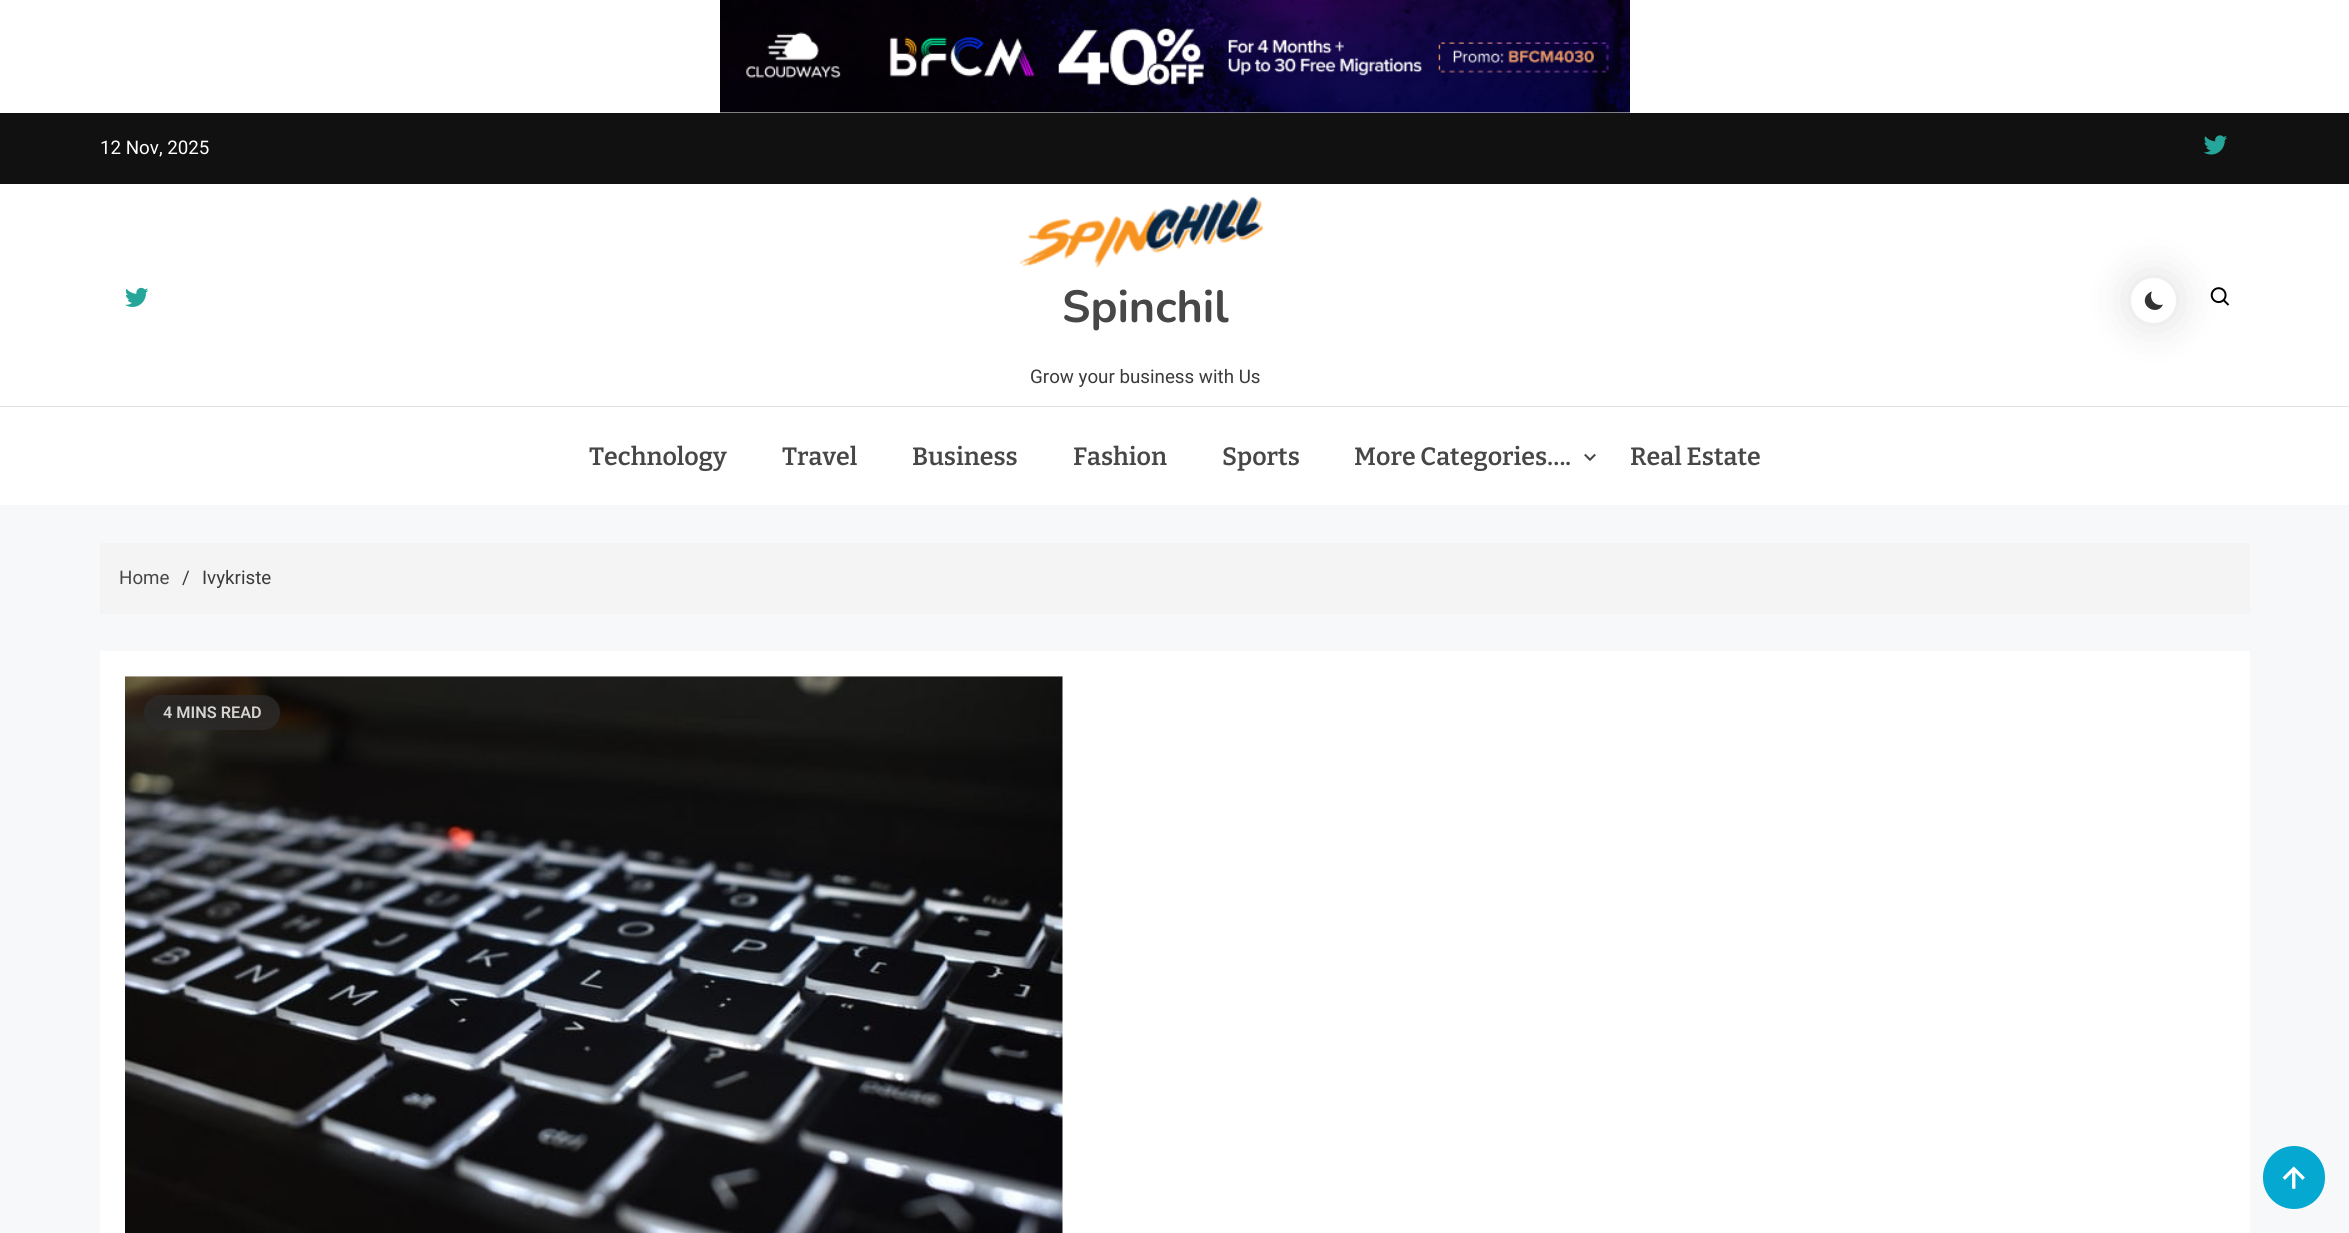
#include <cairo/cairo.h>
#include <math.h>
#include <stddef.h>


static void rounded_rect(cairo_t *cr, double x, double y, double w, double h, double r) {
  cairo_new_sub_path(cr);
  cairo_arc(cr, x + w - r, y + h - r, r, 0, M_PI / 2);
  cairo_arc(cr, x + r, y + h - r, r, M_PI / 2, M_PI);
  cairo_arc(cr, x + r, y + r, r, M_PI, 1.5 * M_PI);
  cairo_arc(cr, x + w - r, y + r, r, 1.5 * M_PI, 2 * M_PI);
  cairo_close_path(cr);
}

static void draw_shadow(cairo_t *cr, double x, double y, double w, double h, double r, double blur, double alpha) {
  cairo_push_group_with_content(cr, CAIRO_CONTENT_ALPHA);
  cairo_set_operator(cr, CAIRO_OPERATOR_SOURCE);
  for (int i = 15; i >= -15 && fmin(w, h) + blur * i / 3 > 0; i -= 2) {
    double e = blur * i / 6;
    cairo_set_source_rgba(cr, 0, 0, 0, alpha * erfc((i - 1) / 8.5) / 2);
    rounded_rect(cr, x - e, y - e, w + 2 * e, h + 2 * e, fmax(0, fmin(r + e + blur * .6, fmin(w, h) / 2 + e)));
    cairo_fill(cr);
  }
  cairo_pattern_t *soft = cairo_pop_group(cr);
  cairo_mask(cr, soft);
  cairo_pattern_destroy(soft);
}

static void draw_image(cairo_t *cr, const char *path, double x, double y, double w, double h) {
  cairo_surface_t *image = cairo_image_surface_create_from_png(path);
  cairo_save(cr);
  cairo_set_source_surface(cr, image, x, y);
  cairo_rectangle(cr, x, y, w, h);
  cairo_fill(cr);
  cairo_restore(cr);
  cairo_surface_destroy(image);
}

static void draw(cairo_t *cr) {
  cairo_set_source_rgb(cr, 1, 1, 1);
  cairo_paint(cr);
  draw_image(cr, "images/1.png", 720, 0, 910, 113);
  cairo_set_source_rgb(cr, 247 / 255.0, 248 / 255.0, 249 / 255.0);
  cairo_rectangle(cr, 0, 505, 2349, 728);
  cairo_fill(cr);
  cairo_set_source_rgb(cr, 17 / 255.0, 17 / 255.0, 17 / 255.0);
  cairo_rectangle(cr, 0, 113, 2349, 71);
  cairo_fill(cr);
  draw_image(cr, "images/2.png", 2203, 135, 24, 20);
  draw_image(cr, "images/3.png", 125, 287, 24, 20);
  draw_image(cr, "images/4.png", 1020, 195, 244, 73);
  cairo_set_source_rgb(cr, 0, 0, 0);
  draw_shadow(cr, 2131, 278, 45, 45, 22.5, 22, 0.13);
  cairo_set_source_rgb(cr, 1, 1, 1);
  cairo_arc(cr, 2153.5, 300.5, 22.5, 0, 2 * M_PI);
  cairo_fill(cr);
  cairo_set_source_rgb(cr, 51 / 255.0, 51 / 255.0, 51 / 255.0);
  cairo_new_path(cr);
  cairo_move_to(cr, 2163, 304.5);
  cairo_curve_to(cr, 2155, 307, 2148.5, 299, 2152, 291.5);
  cairo_curve_to(cr, 2149.5, 292, 2147.5, 294, 2146, 296);
  cairo_curve_to(cr, 2140, 307.5, 2158, 316, 2163, 304.5);
  cairo_close_path(cr);
  cairo_fill(cr);
  draw_image(cr, "images/5.png", 2210, 287, 20, 19);
  cairo_set_source_rgb(cr, 225 / 255.0, 225 / 255.0, 225 / 255.0);
  cairo_rectangle(cr, 0, 406, 2349, 1);
  cairo_fill(cr);
  draw_image(cr, "images/6.png", 1584, 453, 12, 8);
  cairo_set_source_rgb(cr, 244 / 255.0, 244 / 255.0, 244 / 255.0);
  cairo_rectangle(cr, 100, 543, 2150, 71);
  cairo_fill(cr);
  cairo_set_source_rgb(cr, 1, 1, 1);
  cairo_rectangle(cr, 100, 651, 2150, 582);
  cairo_fill(cr);
  draw_image(cr, "images/7.png", 125, 676, 938, 557);
  cairo_set_source_rgba(cr, 43 / 255.0, 43 / 255.0, 43 / 255.0, 0.8);
  rounded_rect(cr, 144, 695, 136, 35, 17.5);
  cairo_fill(cr);
  cairo_set_source_rgb(cr, 4 / 255.0, 168 / 255.0, 208 / 255.0);
  rounded_rect(cr, 2263, 1146, 62, 63, 31);
  cairo_fill(cr);
  draw_image(cr, "images/8.png", 2282, 1166, 23, 23);
  cairo_select_font_face(cr, "Roboto", CAIRO_FONT_SLANT_NORMAL, CAIRO_FONT_WEIGHT_NORMAL);
  cairo_set_font_size(cr, 18.75);
  cairo_set_source_rgb(cr, 1, 1, 1);
  cairo_move_to(cr, 100, 154);
  cairo_show_text(cr, "12 Nov, 2025");
  cairo_select_font_face(cr, "Nunito", CAIRO_FONT_SLANT_NORMAL, CAIRO_FONT_WEIGHT_BOLD);
  cairo_set_font_size(cr, 45);
  cairo_set_source_rgb(cr, 72 / 255.0, 71 / 255.0, 71 / 255.0);
  cairo_move_to(cr, 1062, 322);
  cairo_show_text(cr, "Spinchil");
  cairo_select_font_face(cr, "Roboto", CAIRO_FONT_SLANT_NORMAL, CAIRO_FONT_WEIGHT_NORMAL);
  cairo_set_font_size(cr, 18.75);
  cairo_set_source_rgb(cr, 59 / 255.0, 59 / 255.0, 59 / 255.0);
  cairo_move_to(cr, 1030, 383);
  cairo_show_text(cr, "Grow your business with Us");
  cairo_select_font_face(cr, "Bitter SemiBold", CAIRO_FONT_SLANT_NORMAL, CAIRO_FONT_WEIGHT_NORMAL);
  cairo_set_font_size(cr, 25);
  cairo_set_source_rgb(cr, 72 / 255.0, 71 / 255.0, 71 / 255.0);
  cairo_move_to(cr, 589, 465);
  cairo_show_text(cr, "Technology");
  cairo_move_to(cr, 782, 465);
  cairo_show_text(cr, "Travel");
  cairo_move_to(cr, 912, 465);
  cairo_show_text(cr, "Business");
  cairo_move_to(cr, 1073, 465);
  cairo_show_text(cr, "Fashion");
  cairo_move_to(cr, 1222, 465);
  cairo_show_text(cr, "Sports");
  cairo_move_to(cr, 1354, 465);
  cairo_show_text(cr, "More Categories….");
  cairo_move_to(cr, 1630, 465);
  cairo_show_text(cr, "Real Estate");
  cairo_select_font_face(cr, "Roboto", CAIRO_FONT_SLANT_NORMAL, CAIRO_FONT_WEIGHT_NORMAL);
  cairo_set_font_size(cr, 18.75);
  cairo_move_to(cr, 119, 584);
  cairo_show_text(cr, "Home");
  cairo_set_source_rgb(cr, 59 / 255.0, 59 / 255.0, 59 / 255.0);
  cairo_move_to(cr, 182, 584);
  cairo_show_text(cr, "/");
  cairo_move_to(cr, 202, 584);
  cairo_show_text(cr, "Ivykriste");
  cairo_select_font_face(cr, "Roboto SemiBold", CAIRO_FONT_SLANT_NORMAL, CAIRO_FONT_WEIGHT_NORMAL);
  cairo_set_font_size(cr, 16.25);
  cairo_set_source_rgb(cr, 212 / 255.0, 212 / 255.0, 211 / 255.0);
  cairo_move_to(cr, 163, 718);
  cairo_show_text(cr, "4 MINS READ");
}

int main(void) {
  cairo_surface_t *surface = cairo_image_surface_create(CAIRO_FORMAT_RGB24, 2349, 1233);
  cairo_t *cr = cairo_create(surface);
  cairo_font_options_t *options = cairo_font_options_create();
  cairo_font_options_set_hint_metrics(options, CAIRO_HINT_METRICS_OFF);
  cairo_font_options_set_hint_style(options, CAIRO_HINT_STYLE_NONE);
  cairo_set_font_options(cr, options);
  cairo_set_miter_limit(cr, 4);
  draw(cr);
  cairo_surface_write_to_png(surface, "out.png");
  cairo_font_options_destroy(options);
  cairo_destroy(cr);
  cairo_surface_destroy(surface);
  return 0;
}
